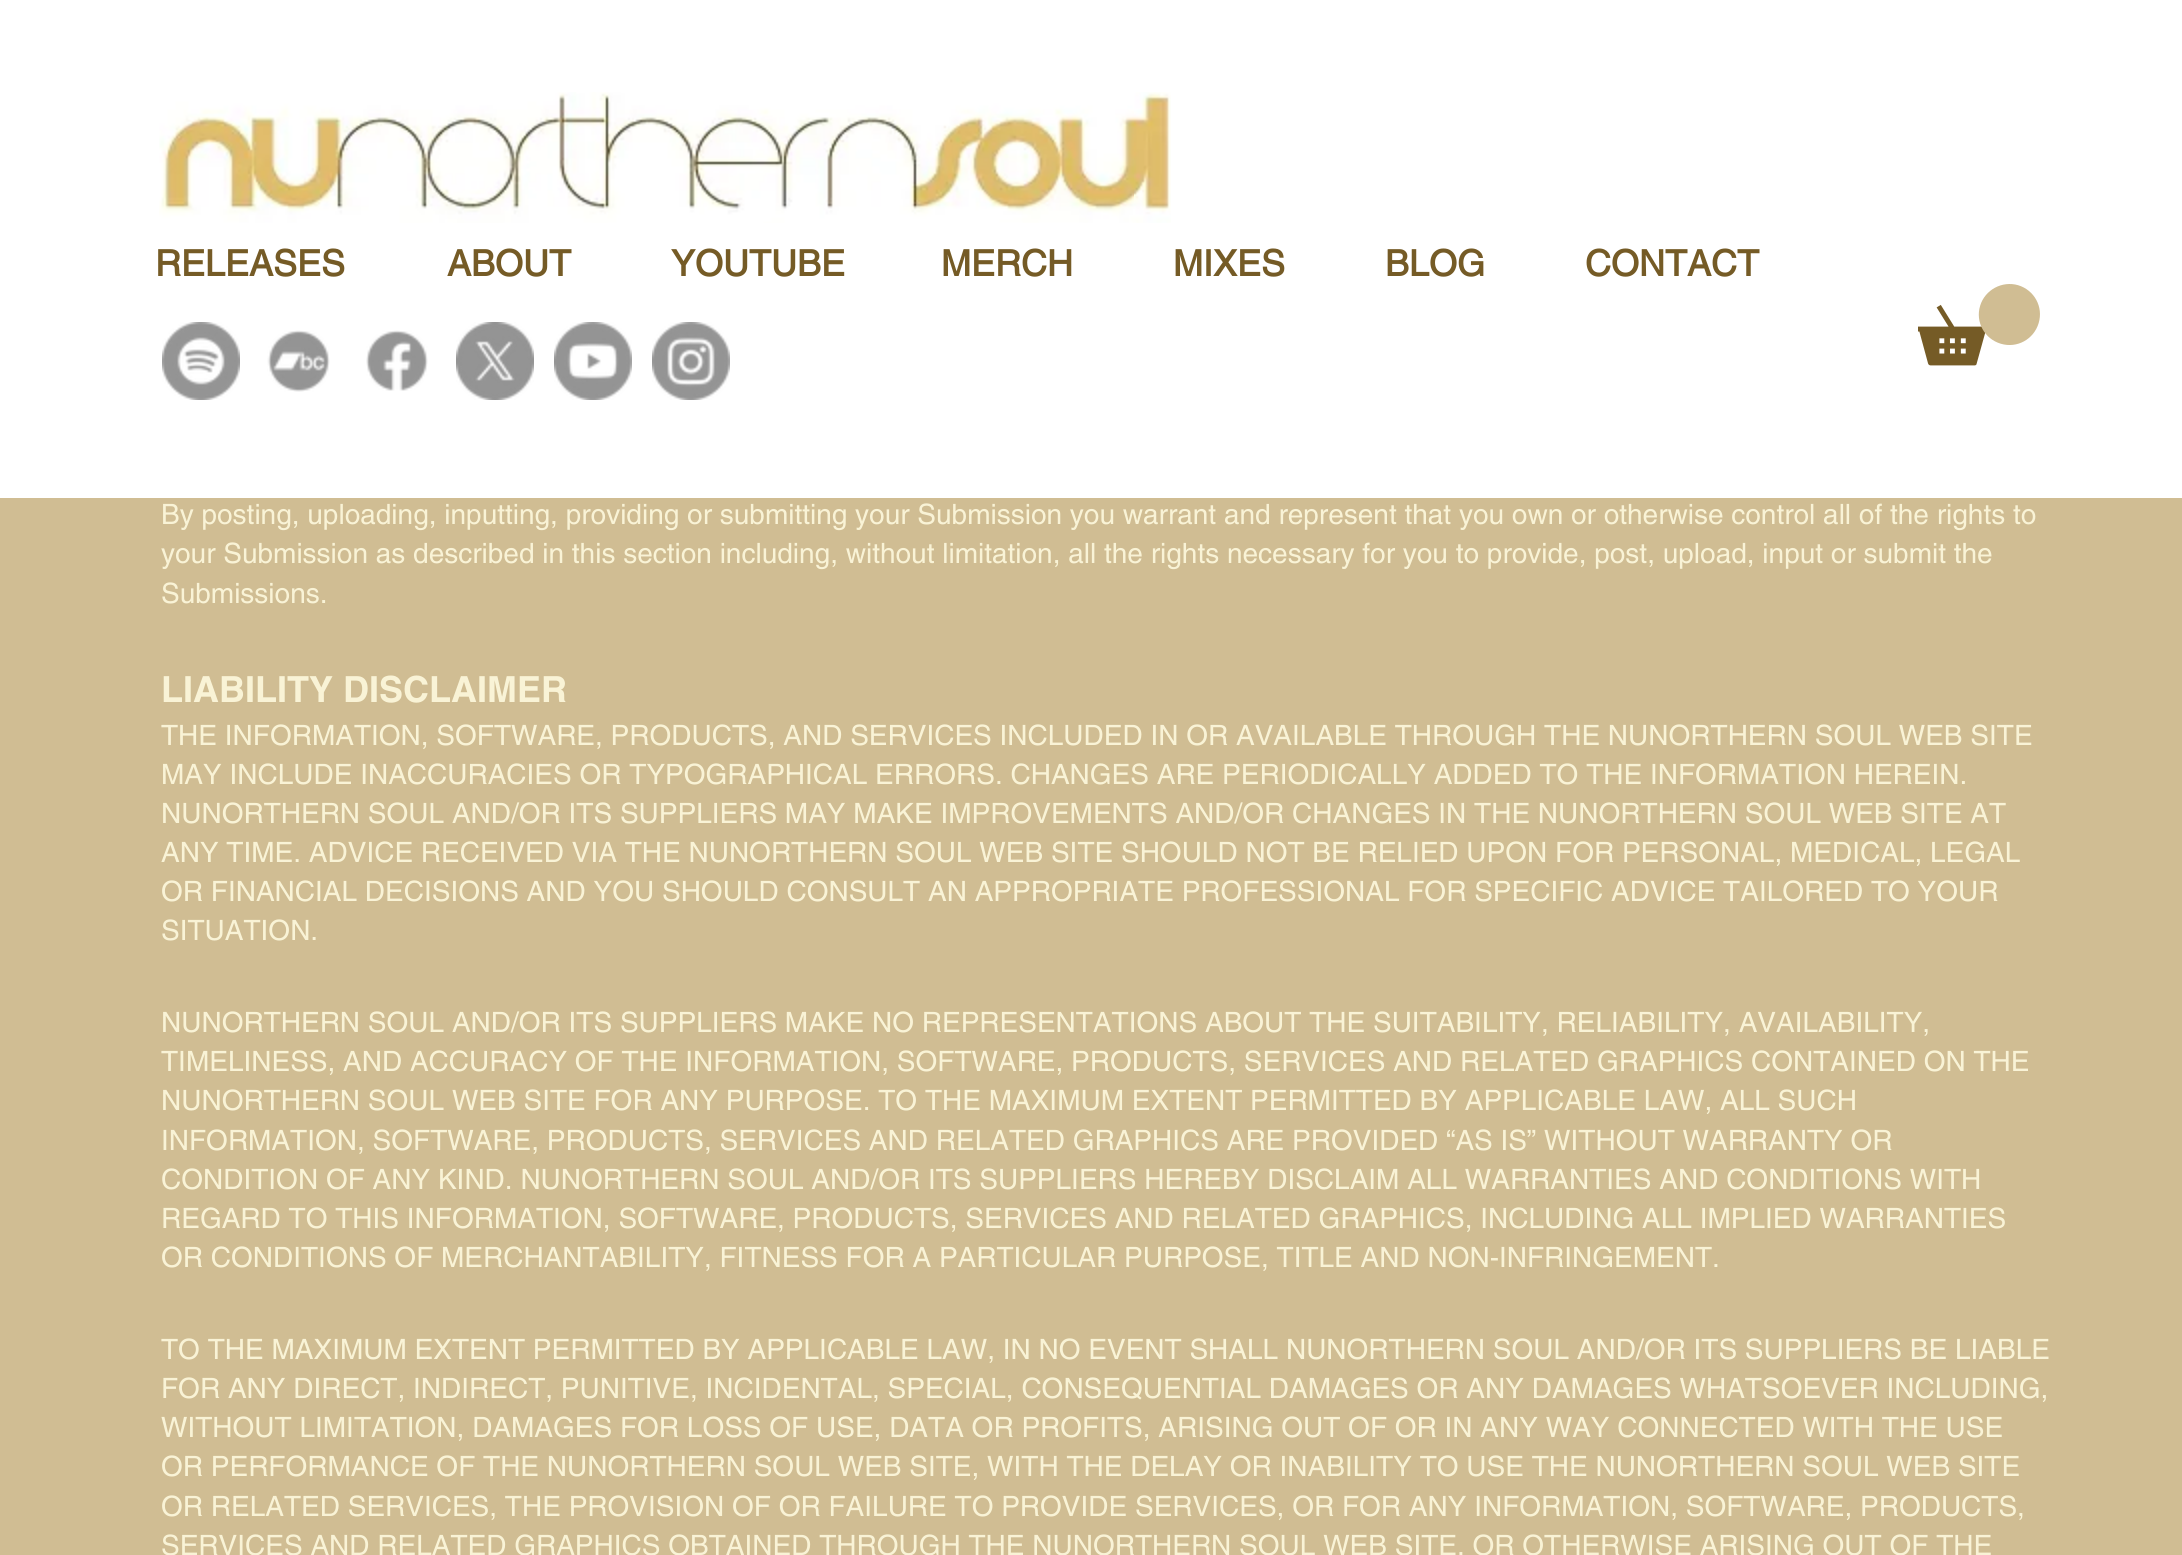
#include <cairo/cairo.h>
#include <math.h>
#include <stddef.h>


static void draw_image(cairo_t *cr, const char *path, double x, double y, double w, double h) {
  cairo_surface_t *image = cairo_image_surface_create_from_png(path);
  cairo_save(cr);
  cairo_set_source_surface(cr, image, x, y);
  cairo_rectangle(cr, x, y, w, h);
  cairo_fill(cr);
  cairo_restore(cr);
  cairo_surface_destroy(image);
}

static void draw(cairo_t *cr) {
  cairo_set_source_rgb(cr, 208 / 255.0, 189 / 255.0, 147 / 255.0);
  cairo_paint(cr);
  cairo_set_source_rgb(cr, 1, 1, 1);
  cairo_rectangle(cr, 0, 0, 2182, 498);
  cairo_fill(cr);
  draw_image(cr, "images/1.png", 159, 92, 1012, 131);
  draw_image(cr, "images/2.png", 162, 322, 78, 78);
  draw_image(cr, "images/3.png", 267, 330, 63, 62);
  draw_image(cr, "images/4.png", 366, 330, 62, 61);
  draw_image(cr, "images/5.png", 456, 322, 78, 78);
  draw_image(cr, "images/6.png", 554, 322, 78, 78);
  draw_image(cr, "images/7.png", 652, 322, 78, 78);
  draw_image(cr, "images/8.png", 1918, 284, 122, 82);
  cairo_select_font_face(cr, "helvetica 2", CAIRO_FONT_SLANT_NORMAL, CAIRO_FONT_WEIGHT_BOLD);
  cairo_set_font_size(cr, 36);
  cairo_set_source_rgb(cr, 117 / 255.0, 91 / 255.0, 38 / 255.0);
  cairo_move_to(cr, 155, 276);
  cairo_show_text(cr, "RELEASES");
  cairo_move_to(cr, 447, 276);
  cairo_show_text(cr, "ABOUT");
  cairo_move_to(cr, 671, 276);
  cairo_show_text(cr, "YOUTUBE");
  cairo_move_to(cr, 941, 276);
  cairo_show_text(cr, "MERCH");
  cairo_move_to(cr, 1173, 276);
  cairo_show_text(cr, "MIXES");
  cairo_move_to(cr, 1385, 276);
  cairo_show_text(cr, "BLOG");
  cairo_move_to(cr, 1585, 276);
  cairo_show_text(cr, "CONTACT");
  cairo_select_font_face(cr, "helvetica", CAIRO_FONT_SLANT_NORMAL, CAIRO_FONT_WEIGHT_NORMAL);
  cairo_set_font_size(cr, 28);
  cairo_set_source_rgb(cr, 249 / 255.0, 243 / 255.0, 214 / 255.0);
  cairo_move_to(cr, 161, 524);
  cairo_show_text(cr, "By posting, uploading, inputting, providing or submitting your Submission you warrant and represent that you own or otherwise control all of the rights to");
  cairo_move_to(cr, 161, 563);
  cairo_show_text(cr, "your Submission as described in this section including, without limitation, all the rights necessary for you to provide, post, upload, input or submit the");
  cairo_move_to(cr, 161, 603);
  cairo_show_text(cr, "Submissions.");
  cairo_select_font_face(cr, "helvetica", CAIRO_FONT_SLANT_NORMAL, CAIRO_FONT_WEIGHT_BOLD);
  cairo_set_font_size(cr, 36);
  cairo_move_to(cr, 161, 702);
  cairo_show_text(cr, "LIABILITY DISCLAIMER");
  cairo_select_font_face(cr, "helvetica", CAIRO_FONT_SLANT_NORMAL, CAIRO_FONT_WEIGHT_NORMAL);
  cairo_set_font_size(cr, 28);
  cairo_move_to(cr, 161, 745);
  cairo_show_text(cr, "THE INFORMATION, SOFTWARE, PRODUCTS, AND SERVICES INCLUDED IN OR AVAILABLE THROUGH THE NUNORTHERN SOUL WEB SITE");
  cairo_move_to(cr, 161, 784);
  cairo_show_text(cr, "MAY INCLUDE INACCURACIES OR TYPOGRAPHICAL ERRORS. CHANGES ARE PERIODICALLY ADDED TO THE INFORMATION HEREIN.");
  cairo_move_to(cr, 161, 823);
  cairo_show_text(cr, "NUNORTHERN SOUL AND/OR ITS SUPPLIERS MAY MAKE IMPROVEMENTS AND/OR CHANGES IN THE NUNORTHERN SOUL WEB SITE AT");
  cairo_move_to(cr, 161, 862);
  cairo_show_text(cr, "ANY TIME. ADVICE RECEIVED VIA THE NUNORTHERN SOUL WEB SITE SHOULD NOT BE RELIED UPON FOR PERSONAL, MEDICAL, LEGAL");
  cairo_move_to(cr, 161, 901);
  cairo_show_text(cr, "OR FINANCIAL DECISIONS AND YOU SHOULD CONSULT AN APPROPRIATE PROFESSIONAL FOR SPECIFIC ADVICE TAILORED TO YOUR");
  cairo_move_to(cr, 161, 940);
  cairo_show_text(cr, "SITUATION.");
  cairo_move_to(cr, 161, 1032);
  cairo_show_text(cr, "NUNORTHERN SOUL AND/OR ITS SUPPLIERS MAKE NO REPRESENTATIONS ABOUT THE SUITABILITY, RELIABILITY, AVAILABILITY,");
  cairo_move_to(cr, 161, 1071);
  cairo_show_text(cr, "TIMELINESS, AND ACCURACY OF THE INFORMATION, SOFTWARE, PRODUCTS, SERVICES AND RELATED GRAPHICS CONTAINED ON THE");
  cairo_move_to(cr, 161, 1110);
  cairo_show_text(cr, "NUNORTHERN SOUL WEB SITE FOR ANY PURPOSE. TO THE MAXIMUM EXTENT PERMITTED BY APPLICABLE LAW, ALL SUCH");
  cairo_move_to(cr, 161, 1150);
  cairo_show_text(cr, "INFORMATION, SOFTWARE, PRODUCTS, SERVICES AND RELATED GRAPHICS ARE PROVIDED “AS IS” WITHOUT WARRANTY OR");
  cairo_move_to(cr, 161, 1189);
  cairo_show_text(cr, "CONDITION OF ANY KIND. NUNORTHERN SOUL AND/OR ITS SUPPLIERS HEREBY DISCLAIM ALL WARRANTIES AND CONDITIONS WITH");
  cairo_move_to(cr, 161, 1228);
  cairo_show_text(cr, "REGARD TO THIS INFORMATION, SOFTWARE, PRODUCTS, SERVICES AND RELATED GRAPHICS, INCLUDING ALL IMPLIED WARRANTIES");
  cairo_move_to(cr, 161, 1267);
  cairo_show_text(cr, "OR CONDITIONS OF MERCHANTABILITY, FITNESS FOR A PARTICULAR PURPOSE, TITLE AND NON-INFRINGEMENT.");
  cairo_move_to(cr, 161, 1359);
  cairo_show_text(cr, "TO THE MAXIMUM EXTENT PERMITTED BY APPLICABLE LAW, IN NO EVENT SHALL NUNORTHERN SOUL AND/OR ITS SUPPLIERS BE LIABLE");
  cairo_move_to(cr, 161, 1398);
  cairo_show_text(cr, "FOR ANY DIRECT, INDIRECT, PUNITIVE, INCIDENTAL, SPECIAL, CONSEQUENTIAL DAMAGES OR ANY DAMAGES WHATSOEVER INCLUDING,");
  cairo_move_to(cr, 161, 1437);
  cairo_show_text(cr, "WITHOUT LIMITATION, DAMAGES FOR LOSS OF USE, DATA OR PROFITS, ARISING OUT OF OR IN ANY WAY CONNECTED WITH THE USE");
  cairo_move_to(cr, 161, 1476);
  cairo_show_text(cr, "OR PERFORMANCE OF THE NUNORTHERN SOUL WEB SITE, WITH THE DELAY OR INABILITY TO USE THE NUNORTHERN SOUL WEB SITE");
  cairo_move_to(cr, 161, 1516);
  cairo_show_text(cr, "OR RELATED SERVICES, THE PROVISION OF OR FAILURE TO PROVIDE SERVICES, OR FOR ANY INFORMATION, SOFTWARE, PRODUCTS,");
  cairo_move_to(cr, 161, 1555);
  cairo_show_text(cr, "SERVICES AND RELATED GRAPHICS OBTAINED THROUGH THE NUNORTHERN SOUL WEB SITE, OR OTHERWISE ARISING OUT OF THE");
}

int main(void) {
  cairo_surface_t *surface = cairo_image_surface_create(CAIRO_FORMAT_RGB24, 2182, 1555);
  cairo_t *cr = cairo_create(surface);
  cairo_font_options_t *options = cairo_font_options_create();
  cairo_font_options_set_hint_metrics(options, CAIRO_HINT_METRICS_OFF);
  cairo_font_options_set_hint_style(options, CAIRO_HINT_STYLE_NONE);
  cairo_set_font_options(cr, options);
  cairo_set_miter_limit(cr, 4);
  draw(cr);
  cairo_surface_write_to_png(surface, "out.png");
  cairo_font_options_destroy(options);
  cairo_destroy(cr);
  cairo_surface_destroy(surface);
  return 0;
}
